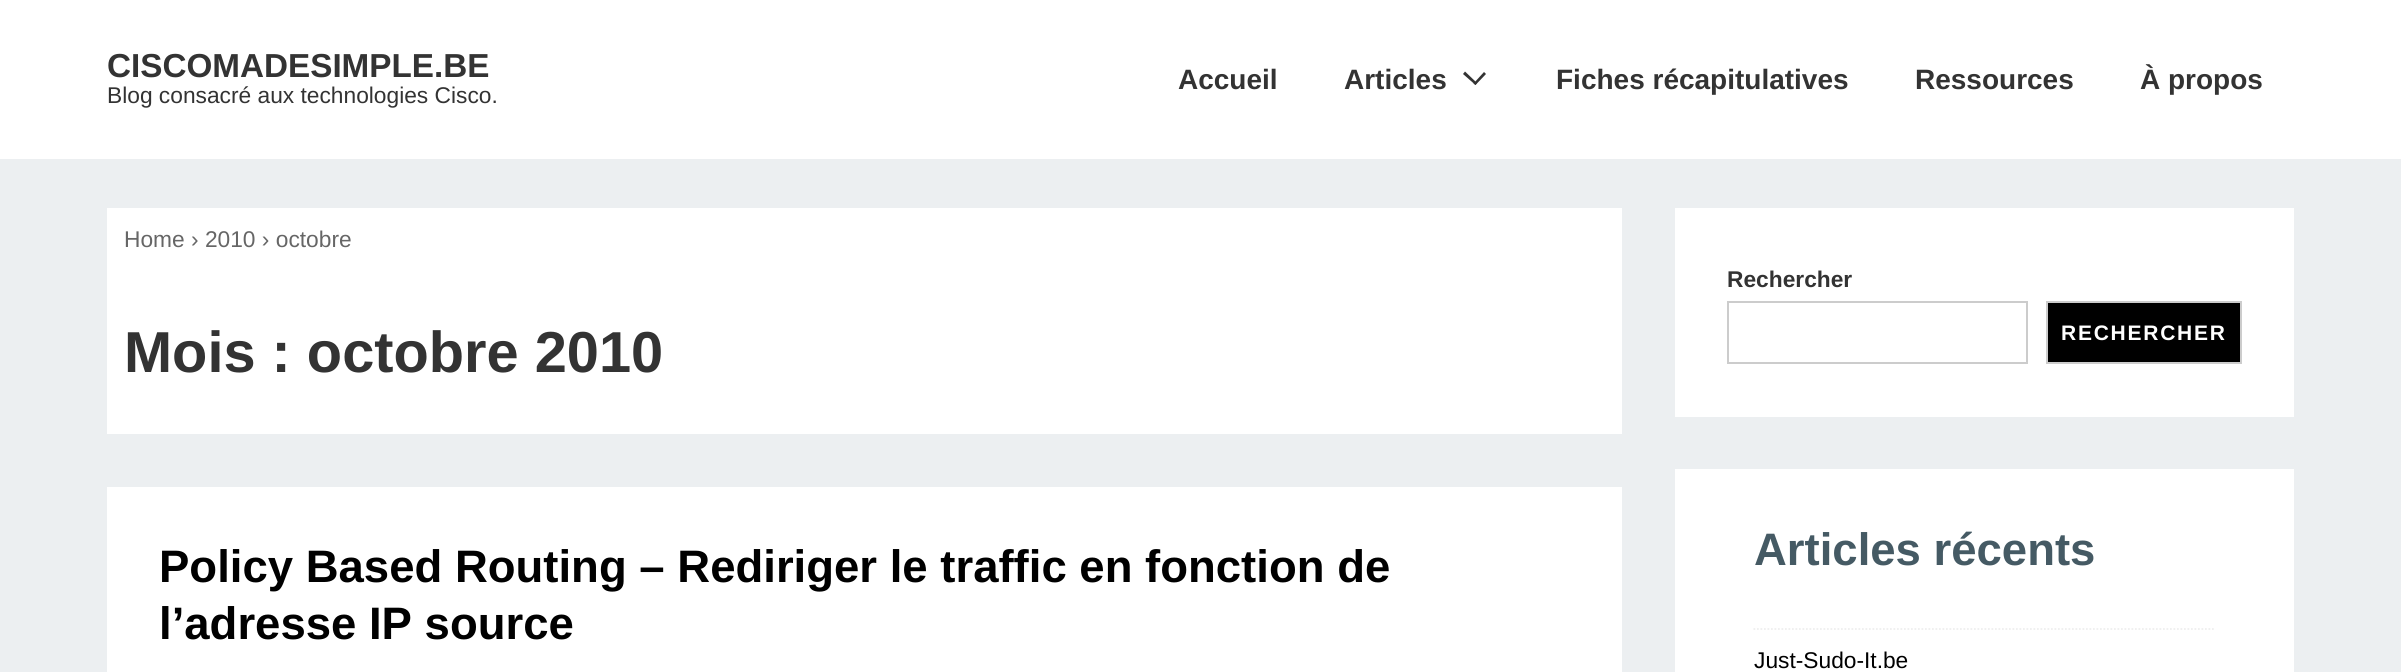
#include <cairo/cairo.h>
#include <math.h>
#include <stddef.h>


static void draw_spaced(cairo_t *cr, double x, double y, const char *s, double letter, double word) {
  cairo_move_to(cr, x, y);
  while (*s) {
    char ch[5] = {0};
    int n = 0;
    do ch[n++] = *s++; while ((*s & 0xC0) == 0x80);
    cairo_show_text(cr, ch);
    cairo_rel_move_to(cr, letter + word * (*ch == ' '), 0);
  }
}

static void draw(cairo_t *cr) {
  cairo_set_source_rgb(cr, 236 / 255.0, 239 / 255.0, 241 / 255.0);
  cairo_paint(cr);
  cairo_set_source_rgb(cr, 1, 1, 1);
  cairo_rectangle(cr, 0, 0, 2401, 159);
  cairo_fill(cr);
  cairo_set_source_rgb(cr, 51 / 255.0, 51 / 255.0, 51 / 255.0);
  cairo_new_path(cr);
  cairo_move_to(cr, 1463, 74);
  cairo_line_to(cr, 1465, 71.5);
  cairo_line_to(cr, 1477, 83);
  cairo_line_to(cr, 1475.5, 85);
  cairo_close_path(cr);
  cairo_fill(cr);
  cairo_new_path(cr);
  cairo_move_to(cr, 1473.5, 83.5);
  cairo_line_to(cr, 1484, 72);
  cairo_line_to(cr, 1486, 74);
  cairo_line_to(cr, 1475.5, 85);
  cairo_close_path(cr);
  cairo_fill(cr);
  cairo_set_source_rgb(cr, 1, 1, 1);
  cairo_rectangle(cr, 107, 208, 1515, 226);
  cairo_fill(cr);
  cairo_rectangle(cr, 107, 487, 1515, 185);
  cairo_fill(cr);
  cairo_rectangle(cr, 1675, 208, 619, 209);
  cairo_fill(cr);
  cairo_rectangle(cr, 1728, 302, 299, 61);
  cairo_set_source_rgb(cr, 204 / 255.0, 204 / 255.0, 204 / 255.0);
  cairo_stroke(cr);
  cairo_set_source_rgb(cr, 0, 0, 0);
  cairo_rectangle(cr, 2047, 302, 194, 61);
  cairo_fill_preserve(cr);
  cairo_set_source_rgb(cr, 204 / 255.0, 204 / 255.0, 204 / 255.0);
  cairo_stroke(cr);
  cairo_set_source_rgb(cr, 1, 1, 1);
  cairo_rectangle(cr, 1675, 469, 619, 203);
  cairo_fill(cr);
  cairo_new_path(cr);
  cairo_move_to(cr, 1753.5, 629);
  cairo_line_to(cr, 2215.5, 629);
  cairo_set_source_rgb(cr, 238 / 255.0, 238 / 255.0, 238 / 255.0);
  cairo_set_line_width(cr, 1.8);
  cairo_set_dash(cr, (double[]){1.75, 1.75}, 2, 0);
  cairo_stroke(cr);
  cairo_select_font_face(cr, "Liberation Sans", CAIRO_FONT_SLANT_NORMAL, CAIRO_FONT_WEIGHT_BOLD);
  cairo_set_font_size(cr, 33.25);
  cairo_set_source_rgb(cr, 51 / 255.0, 51 / 255.0, 51 / 255.0);
  cairo_move_to(cr, 107, 77);
  cairo_show_text(cr, "CISCOMADESIMPLE.BE");
  cairo_select_font_face(cr, "Liberation Sans", CAIRO_FONT_SLANT_NORMAL, CAIRO_FONT_WEIGHT_NORMAL);
  cairo_set_font_size(cr, 22.75);
  cairo_move_to(cr, 107, 103);
  cairo_show_text(cr, "Blog consacré aux technologies Cisco.");
  cairo_select_font_face(cr, "Liberation Sans", CAIRO_FONT_SLANT_NORMAL, CAIRO_FONT_WEIGHT_BOLD);
  cairo_set_font_size(cr, 28);
  cairo_move_to(cr, 1178, 89);
  cairo_show_text(cr, "Accueil");
  cairo_move_to(cr, 1344, 89);
  cairo_show_text(cr, "Articles");
  cairo_move_to(cr, 1556, 89);
  cairo_show_text(cr, "Fiches récapitulatives");
  cairo_move_to(cr, 1915, 89);
  cairo_show_text(cr, "Ressources");
  cairo_move_to(cr, 2140, 89);
  cairo_show_text(cr, "À propos");
  cairo_select_font_face(cr, "Liberation Sans", CAIRO_FONT_SLANT_NORMAL, CAIRO_FONT_WEIGHT_NORMAL);
  cairo_set_font_size(cr, 22.75);
  cairo_set_source_rgb(cr, 102 / 255.0, 102 / 255.0, 102 / 255.0);
  cairo_move_to(cr, 124, 247);
  cairo_show_text(cr, "Home › 2010 › octobre");
  cairo_select_font_face(cr, "Liberation Sans", CAIRO_FONT_SLANT_NORMAL, CAIRO_FONT_WEIGHT_BOLD);
  cairo_set_font_size(cr, 57.75);
  cairo_set_source_rgb(cr, 51 / 255.0, 51 / 255.0, 51 / 255.0);
  cairo_move_to(cr, 124, 372);
  cairo_show_text(cr, "Mois : octobre 2010");
  cairo_set_font_size(cr, 45.5);
  cairo_set_source_rgb(cr, 0, 0, 0);
  cairo_move_to(cr, 159, 582);
  cairo_show_text(cr, "Policy Based Routing – Rediriger le traffic en fonction de");
  cairo_move_to(cr, 159, 639);
  cairo_show_text(cr, "l’adresse IP source");
  cairo_set_font_size(cr, 22.75);
  cairo_set_source_rgb(cr, 51 / 255.0, 51 / 255.0, 51 / 255.0);
  cairo_move_to(cr, 1727, 287);
  cairo_show_text(cr, "Rechercher");
  cairo_set_font_size(cr, 21);
  cairo_set_source_rgb(cr, 1, 1, 1);
  draw_spaced(cr, 2061, 340, "RECHERCHER", 1.75, 0);
  cairo_set_font_size(cr, 45.5);
  cairo_set_source_rgb(cr, 69 / 255.0, 90 / 255.0, 100 / 255.0);
  cairo_move_to(cr, 1754, 565);
  cairo_show_text(cr, "Articles récents");
  cairo_select_font_face(cr, "Liberation Sans", CAIRO_FONT_SLANT_NORMAL, CAIRO_FONT_WEIGHT_NORMAL);
  cairo_set_font_size(cr, 22.75);
  cairo_set_source_rgb(cr, 0, 0, 0);
  cairo_move_to(cr, 1754, 668);
  cairo_show_text(cr, "Just-Sudo-It.be");
}

int main(void) {
  cairo_surface_t *surface = cairo_image_surface_create(CAIRO_FORMAT_RGB24, 2401, 672);
  cairo_t *cr = cairo_create(surface);
  cairo_font_options_t *options = cairo_font_options_create();
  cairo_font_options_set_hint_metrics(options, CAIRO_HINT_METRICS_OFF);
  cairo_font_options_set_hint_style(options, CAIRO_HINT_STYLE_NONE);
  cairo_set_font_options(cr, options);
  cairo_set_miter_limit(cr, 4);
  draw(cr);
  cairo_surface_write_to_png(surface, "out.png");
  cairo_font_options_destroy(options);
  cairo_destroy(cr);
  cairo_surface_destroy(surface);
  return 0;
}
